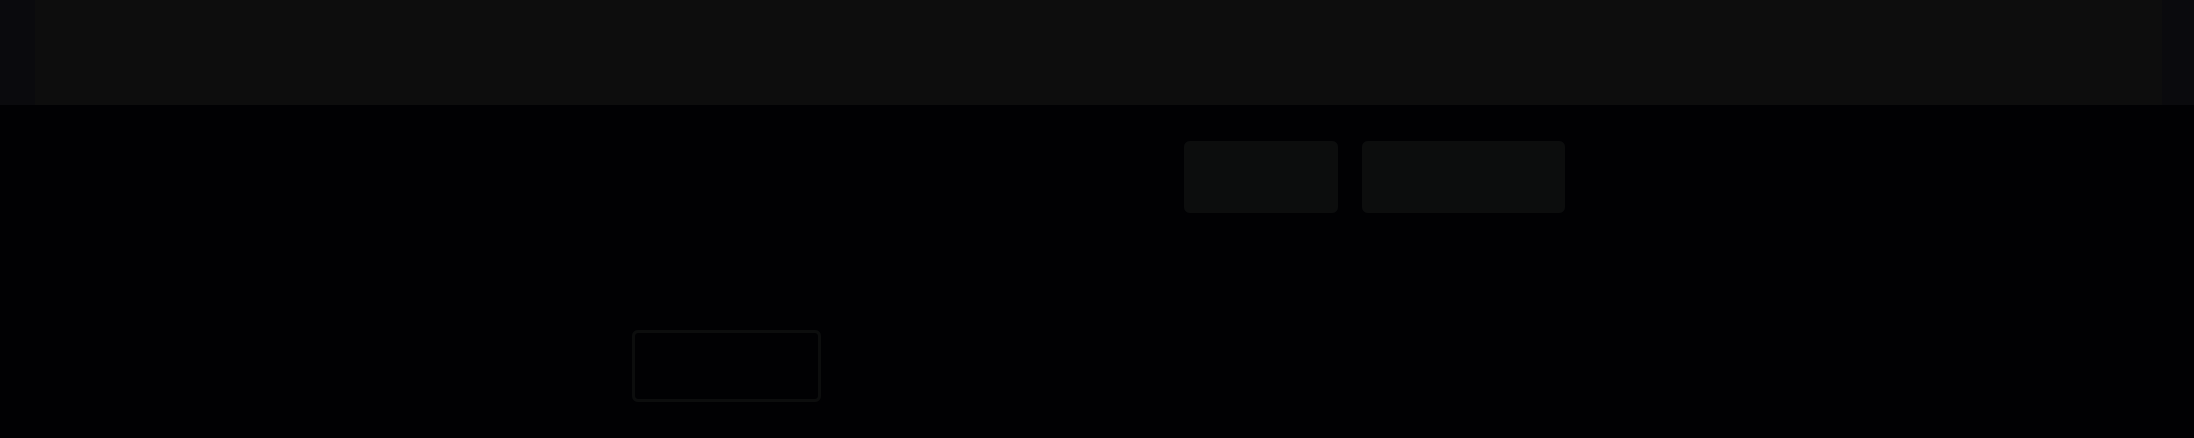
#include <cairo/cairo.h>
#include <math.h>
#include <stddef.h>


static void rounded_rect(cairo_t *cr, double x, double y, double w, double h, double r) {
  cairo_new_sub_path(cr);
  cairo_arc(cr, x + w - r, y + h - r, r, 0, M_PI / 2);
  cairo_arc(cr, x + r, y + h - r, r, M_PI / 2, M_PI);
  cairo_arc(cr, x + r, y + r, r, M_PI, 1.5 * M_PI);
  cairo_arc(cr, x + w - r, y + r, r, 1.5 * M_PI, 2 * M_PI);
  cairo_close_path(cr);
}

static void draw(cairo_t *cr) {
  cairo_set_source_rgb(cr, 10 / 255.0, 10 / 255.0, 13 / 255.0);
  cairo_paint(cr);
  cairo_set_source_rgb(cr, 13 / 255.0, 13 / 255.0, 13 / 255.0);
  cairo_rectangle(cr, 35, 0, 2127, 105);
  cairo_fill(cr);
  cairo_set_source_rgb(cr, 1 / 255.0, 1 / 255.0, 3 / 255.0);
  cairo_rectangle(cr, 0, 105, 2194, 333);
  cairo_fill(cr);
  cairo_set_source_rgb(cr, 12 / 255.0, 13 / 255.0, 13 / 255.0);
  rounded_rect(cr, 1184, 141, 154, 72, 6);
  cairo_fill(cr);
  rounded_rect(cr, 1362, 141, 203, 72, 6);
  cairo_fill(cr);
  rounded_rect(cr, 633.5, 331.5, 186, 69, 4.5);
  cairo_set_line_width(cr, 3);
  cairo_stroke(cr);
}

int main(void) {
  cairo_surface_t *surface = cairo_image_surface_create(CAIRO_FORMAT_RGB24, 2194, 438);
  cairo_t *cr = cairo_create(surface);
  cairo_font_options_t *options = cairo_font_options_create();
  cairo_font_options_set_hint_metrics(options, CAIRO_HINT_METRICS_OFF);
  cairo_font_options_set_hint_style(options, CAIRO_HINT_STYLE_NONE);
  cairo_set_font_options(cr, options);
  cairo_set_miter_limit(cr, 4);
  draw(cr);
  cairo_surface_write_to_png(surface, "out.png");
  cairo_font_options_destroy(options);
  cairo_destroy(cr);
  cairo_surface_destroy(surface);
  return 0;
}
